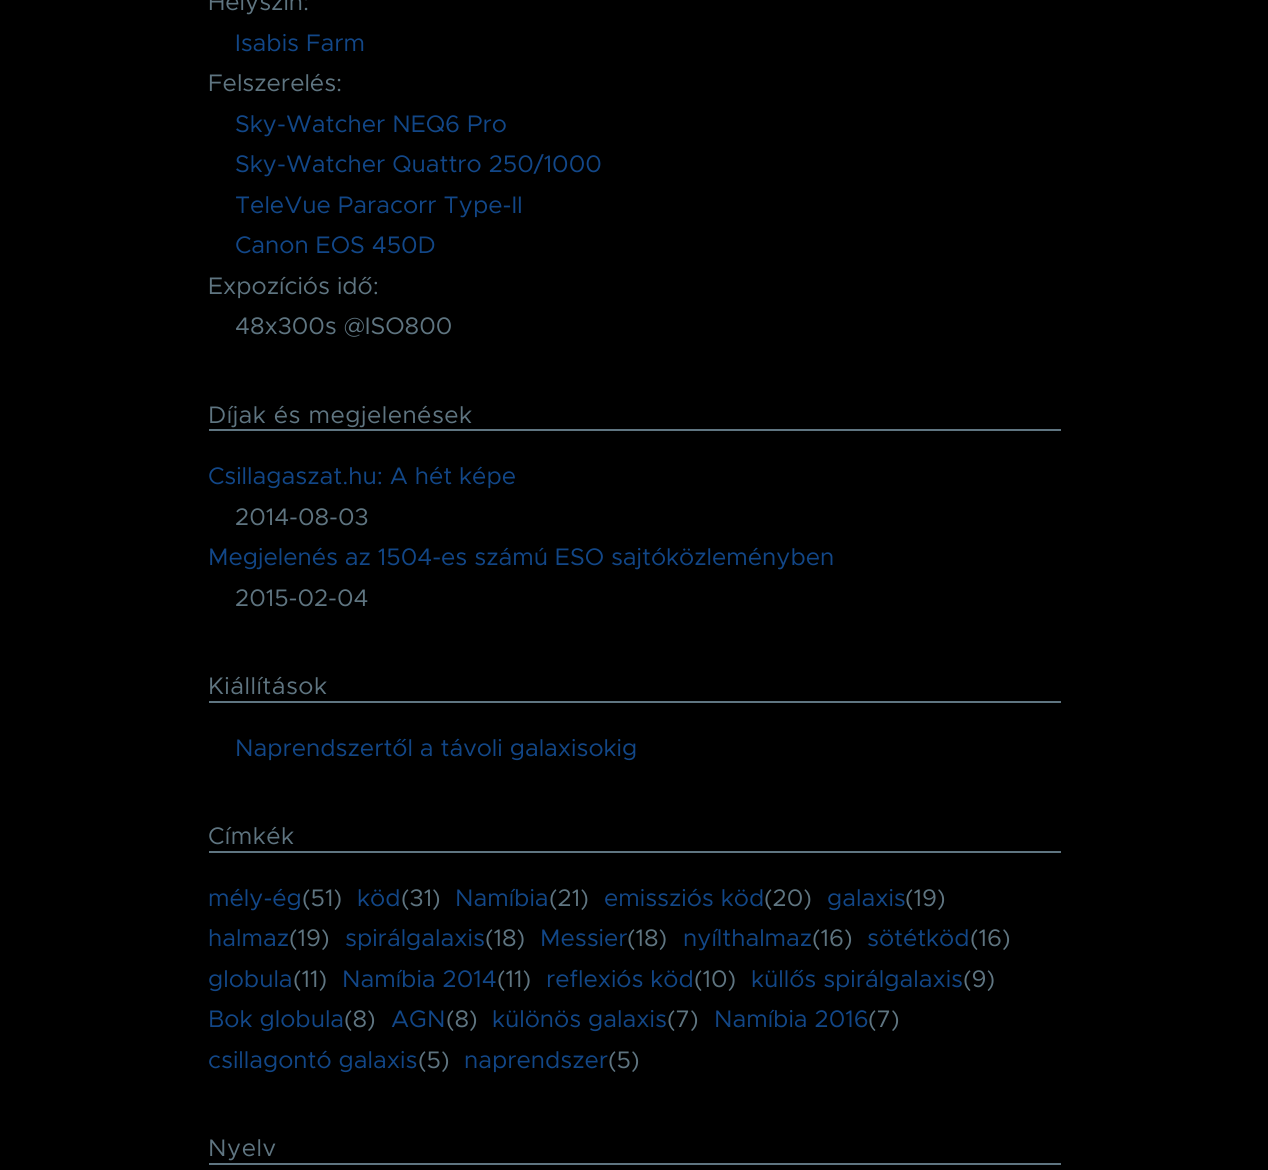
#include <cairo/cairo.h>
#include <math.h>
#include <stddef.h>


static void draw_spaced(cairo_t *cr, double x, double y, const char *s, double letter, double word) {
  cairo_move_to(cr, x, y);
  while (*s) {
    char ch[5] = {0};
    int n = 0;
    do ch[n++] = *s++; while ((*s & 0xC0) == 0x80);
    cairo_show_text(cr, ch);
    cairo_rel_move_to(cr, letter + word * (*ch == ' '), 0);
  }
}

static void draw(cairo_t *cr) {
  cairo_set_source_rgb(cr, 0, 0, 0);
  cairo_paint(cr);
  cairo_set_source_rgb(cr, 95 / 255.0, 117 / 255.0, 129 / 255.0);
  cairo_rectangle(cr, 209, 429, 852, 2);
  cairo_fill(cr);
  cairo_rectangle(cr, 209, 701, 852, 2);
  cairo_fill(cr);
  cairo_rectangle(cr, 209, 851, 852, 2);
  cairo_fill(cr);
  cairo_rectangle(cr, 209, 1163, 852, 2);
  cairo_fill(cr);
  cairo_select_font_face(cr, "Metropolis", CAIRO_FONT_SLANT_NORMAL, CAIRO_FONT_WEIGHT_NORMAL);
  cairo_set_font_size(cr, 24);
  cairo_move_to(cr, 208, 10);
  cairo_show_text(cr, "Helyszín:");
  cairo_set_source_rgb(cr, 18 / 255.0, 71 / 255.0, 136 / 255.0);
  cairo_move_to(cr, 235, 51);
  cairo_show_text(cr, "Isabis Farm");
  cairo_set_source_rgb(cr, 95 / 255.0, 117 / 255.0, 129 / 255.0);
  cairo_move_to(cr, 208, 91);
  cairo_show_text(cr, "Felszerelés:");
  cairo_set_source_rgb(cr, 18 / 255.0, 71 / 255.0, 136 / 255.0);
  cairo_move_to(cr, 235, 132);
  cairo_show_text(cr, "Sky-Watcher NEQ6 Pro");
  cairo_move_to(cr, 235, 172);
  cairo_show_text(cr, "Sky-Watcher Quattro 250/1000");
  cairo_move_to(cr, 235, 213);
  cairo_show_text(cr, "TeleVue Paracorr Type-II");
  cairo_move_to(cr, 235, 253);
  cairo_show_text(cr, "Canon EOS 450D");
  cairo_set_source_rgb(cr, 95 / 255.0, 117 / 255.0, 129 / 255.0);
  cairo_move_to(cr, 208, 294);
  cairo_show_text(cr, "Expozíciós idő:");
  cairo_move_to(cr, 235, 334);
  cairo_show_text(cr, "48x300s @ISO800");
  draw_spaced(cr, 208, 423, "Díjak és megjelenések", 0.5, 0);
  cairo_set_source_rgb(cr, 18 / 255.0, 71 / 255.0, 136 / 255.0);
  cairo_move_to(cr, 208, 484);
  cairo_show_text(cr, "Csillagaszat.hu: A hét képe");
  cairo_set_source_rgb(cr, 95 / 255.0, 117 / 255.0, 129 / 255.0);
  cairo_move_to(cr, 235, 525);
  cairo_show_text(cr, "2014-08-03");
  cairo_set_source_rgb(cr, 18 / 255.0, 71 / 255.0, 136 / 255.0);
  cairo_move_to(cr, 208, 565);
  cairo_show_text(cr, "Megjelenés az 1504-es számú ESO sajtóközleményben");
  cairo_set_source_rgb(cr, 95 / 255.0, 117 / 255.0, 129 / 255.0);
  cairo_move_to(cr, 235, 606);
  cairo_show_text(cr, "2015-02-04");
  draw_spaced(cr, 208, 694, "Kiállítások", 0.5, 0);
  cairo_set_source_rgb(cr, 18 / 255.0, 71 / 255.0, 136 / 255.0);
  cairo_move_to(cr, 235, 756);
  cairo_show_text(cr, "Naprendszertől a távoli galaxisokig");
  cairo_set_source_rgb(cr, 95 / 255.0, 117 / 255.0, 129 / 255.0);
  draw_spaced(cr, 208, 844, "Címkék", 0.5, 0);
  cairo_set_source_rgb(cr, 18 / 255.0, 71 / 255.0, 136 / 255.0);
  cairo_move_to(cr, 208, 906);
  cairo_show_text(cr, "mély-ég");
  cairo_set_source_rgb(cr, 95 / 255.0, 117 / 255.0, 129 / 255.0);
  cairo_move_to(cr, 302, 906);
  cairo_show_text(cr, "(51)");
  cairo_set_source_rgb(cr, 18 / 255.0, 71 / 255.0, 136 / 255.0);
  cairo_move_to(cr, 357, 906);
  cairo_show_text(cr, "köd");
  cairo_set_source_rgb(cr, 95 / 255.0, 117 / 255.0, 129 / 255.0);
  cairo_move_to(cr, 401, 906);
  cairo_show_text(cr, "(31)");
  cairo_set_source_rgb(cr, 18 / 255.0, 71 / 255.0, 136 / 255.0);
  cairo_move_to(cr, 455, 906);
  cairo_show_text(cr, "Namíbia");
  cairo_set_source_rgb(cr, 95 / 255.0, 117 / 255.0, 129 / 255.0);
  cairo_move_to(cr, 549, 906);
  cairo_show_text(cr, "(21)");
  cairo_set_source_rgb(cr, 18 / 255.0, 71 / 255.0, 136 / 255.0);
  cairo_move_to(cr, 604, 906);
  cairo_show_text(cr, "emissziós köd");
  cairo_set_source_rgb(cr, 95 / 255.0, 117 / 255.0, 129 / 255.0);
  cairo_move_to(cr, 764, 906);
  cairo_show_text(cr, "(20)");
  cairo_set_source_rgb(cr, 18 / 255.0, 71 / 255.0, 136 / 255.0);
  cairo_move_to(cr, 827, 906);
  cairo_show_text(cr, "galaxis");
  cairo_set_source_rgb(cr, 95 / 255.0, 117 / 255.0, 129 / 255.0);
  cairo_move_to(cr, 905, 906);
  cairo_show_text(cr, "(19)");
  cairo_set_source_rgb(cr, 18 / 255.0, 71 / 255.0, 136 / 255.0);
  cairo_move_to(cr, 208, 946);
  cairo_show_text(cr, "halmaz");
  cairo_set_source_rgb(cr, 95 / 255.0, 117 / 255.0, 129 / 255.0);
  cairo_move_to(cr, 289, 946);
  cairo_show_text(cr, "(19)");
  cairo_set_source_rgb(cr, 18 / 255.0, 71 / 255.0, 136 / 255.0);
  cairo_move_to(cr, 345, 946);
  cairo_show_text(cr, "spirálgalaxis");
  cairo_set_source_rgb(cr, 95 / 255.0, 117 / 255.0, 129 / 255.0);
  cairo_move_to(cr, 485, 946);
  cairo_show_text(cr, "(18)");
  cairo_set_source_rgb(cr, 18 / 255.0, 71 / 255.0, 136 / 255.0);
  cairo_move_to(cr, 540, 946);
  cairo_show_text(cr, "Messier");
  cairo_set_source_rgb(cr, 95 / 255.0, 117 / 255.0, 129 / 255.0);
  cairo_move_to(cr, 627, 946);
  cairo_show_text(cr, "(18)");
  cairo_set_source_rgb(cr, 18 / 255.0, 71 / 255.0, 136 / 255.0);
  cairo_move_to(cr, 683, 946);
  cairo_show_text(cr, "nyílthalmaz");
  cairo_set_source_rgb(cr, 95 / 255.0, 117 / 255.0, 129 / 255.0);
  cairo_move_to(cr, 812, 946);
  cairo_show_text(cr, "(16)");
  cairo_set_source_rgb(cr, 18 / 255.0, 71 / 255.0, 136 / 255.0);
  cairo_move_to(cr, 867, 946);
  cairo_show_text(cr, "sötétköd");
  cairo_set_source_rgb(cr, 95 / 255.0, 117 / 255.0, 129 / 255.0);
  cairo_move_to(cr, 970, 946);
  cairo_show_text(cr, "(16)");
  cairo_set_source_rgb(cr, 18 / 255.0, 71 / 255.0, 136 / 255.0);
  cairo_move_to(cr, 208, 987);
  cairo_show_text(cr, "globula");
  cairo_set_source_rgb(cr, 95 / 255.0, 117 / 255.0, 129 / 255.0);
  cairo_move_to(cr, 293, 987);
  cairo_show_text(cr, "(11)");
  cairo_set_source_rgb(cr, 18 / 255.0, 71 / 255.0, 136 / 255.0);
  cairo_move_to(cr, 342, 987);
  cairo_show_text(cr, "Namíbia 2014");
  cairo_set_source_rgb(cr, 95 / 255.0, 117 / 255.0, 129 / 255.0);
  cairo_move_to(cr, 497, 987);
  cairo_show_text(cr, "(11)");
  cairo_set_source_rgb(cr, 18 / 255.0, 71 / 255.0, 136 / 255.0);
  cairo_move_to(cr, 546, 987);
  cairo_show_text(cr, "reflexiós köd");
  cairo_set_source_rgb(cr, 95 / 255.0, 117 / 255.0, 129 / 255.0);
  cairo_move_to(cr, 694, 987);
  cairo_show_text(cr, "(10)");
  cairo_set_source_rgb(cr, 18 / 255.0, 71 / 255.0, 136 / 255.0);
  cairo_move_to(cr, 751, 987);
  cairo_show_text(cr, "küllős spirálgalaxis");
  cairo_set_source_rgb(cr, 95 / 255.0, 117 / 255.0, 129 / 255.0);
  cairo_move_to(cr, 963, 987);
  cairo_show_text(cr, "(9)");
  cairo_set_source_rgb(cr, 18 / 255.0, 71 / 255.0, 136 / 255.0);
  cairo_move_to(cr, 208, 1027);
  cairo_show_text(cr, "Bok globula");
  cairo_set_source_rgb(cr, 95 / 255.0, 117 / 255.0, 129 / 255.0);
  cairo_move_to(cr, 344, 1027);
  cairo_show_text(cr, "(8)");
  cairo_set_source_rgb(cr, 18 / 255.0, 71 / 255.0, 136 / 255.0);
  cairo_move_to(cr, 391, 1027);
  cairo_show_text(cr, "AGN");
  cairo_set_source_rgb(cr, 95 / 255.0, 117 / 255.0, 129 / 255.0);
  cairo_move_to(cr, 446, 1027);
  cairo_show_text(cr, "(8)");
  cairo_set_source_rgb(cr, 18 / 255.0, 71 / 255.0, 136 / 255.0);
  cairo_move_to(cr, 492, 1027);
  cairo_show_text(cr, "különös galaxis");
  cairo_set_source_rgb(cr, 95 / 255.0, 117 / 255.0, 129 / 255.0);
  cairo_move_to(cr, 667, 1027);
  cairo_show_text(cr, "(7)");
  cairo_set_source_rgb(cr, 18 / 255.0, 71 / 255.0, 136 / 255.0);
  cairo_move_to(cr, 714, 1027);
  cairo_show_text(cr, "Namíbia 2016");
  cairo_set_source_rgb(cr, 95 / 255.0, 117 / 255.0, 129 / 255.0);
  cairo_move_to(cr, 868, 1027);
  cairo_show_text(cr, "(7)");
  cairo_set_source_rgb(cr, 18 / 255.0, 71 / 255.0, 136 / 255.0);
  cairo_move_to(cr, 208, 1068);
  cairo_show_text(cr, "csillagontó galaxis");
  cairo_set_source_rgb(cr, 95 / 255.0, 117 / 255.0, 129 / 255.0);
  cairo_move_to(cr, 418, 1068);
  cairo_show_text(cr, "(5)");
  cairo_set_source_rgb(cr, 18 / 255.0, 71 / 255.0, 136 / 255.0);
  cairo_move_to(cr, 464, 1068);
  cairo_show_text(cr, "naprendszer");
  cairo_set_source_rgb(cr, 95 / 255.0, 117 / 255.0, 129 / 255.0);
  cairo_move_to(cr, 608, 1068);
  cairo_show_text(cr, "(5)");
  draw_spaced(cr, 208, 1156, "Nyelv", 0.5, 0);
}

int main(void) {
  cairo_surface_t *surface = cairo_image_surface_create(CAIRO_FORMAT_RGB24, 1268, 1170);
  cairo_t *cr = cairo_create(surface);
  cairo_font_options_t *options = cairo_font_options_create();
  cairo_font_options_set_hint_metrics(options, CAIRO_HINT_METRICS_OFF);
  cairo_font_options_set_hint_style(options, CAIRO_HINT_STYLE_NONE);
  cairo_set_font_options(cr, options);
  cairo_set_miter_limit(cr, 4);
  draw(cr);
  cairo_surface_write_to_png(surface, "out.png");
  cairo_font_options_destroy(options);
  cairo_destroy(cr);
  cairo_surface_destroy(surface);
  return 0;
}
